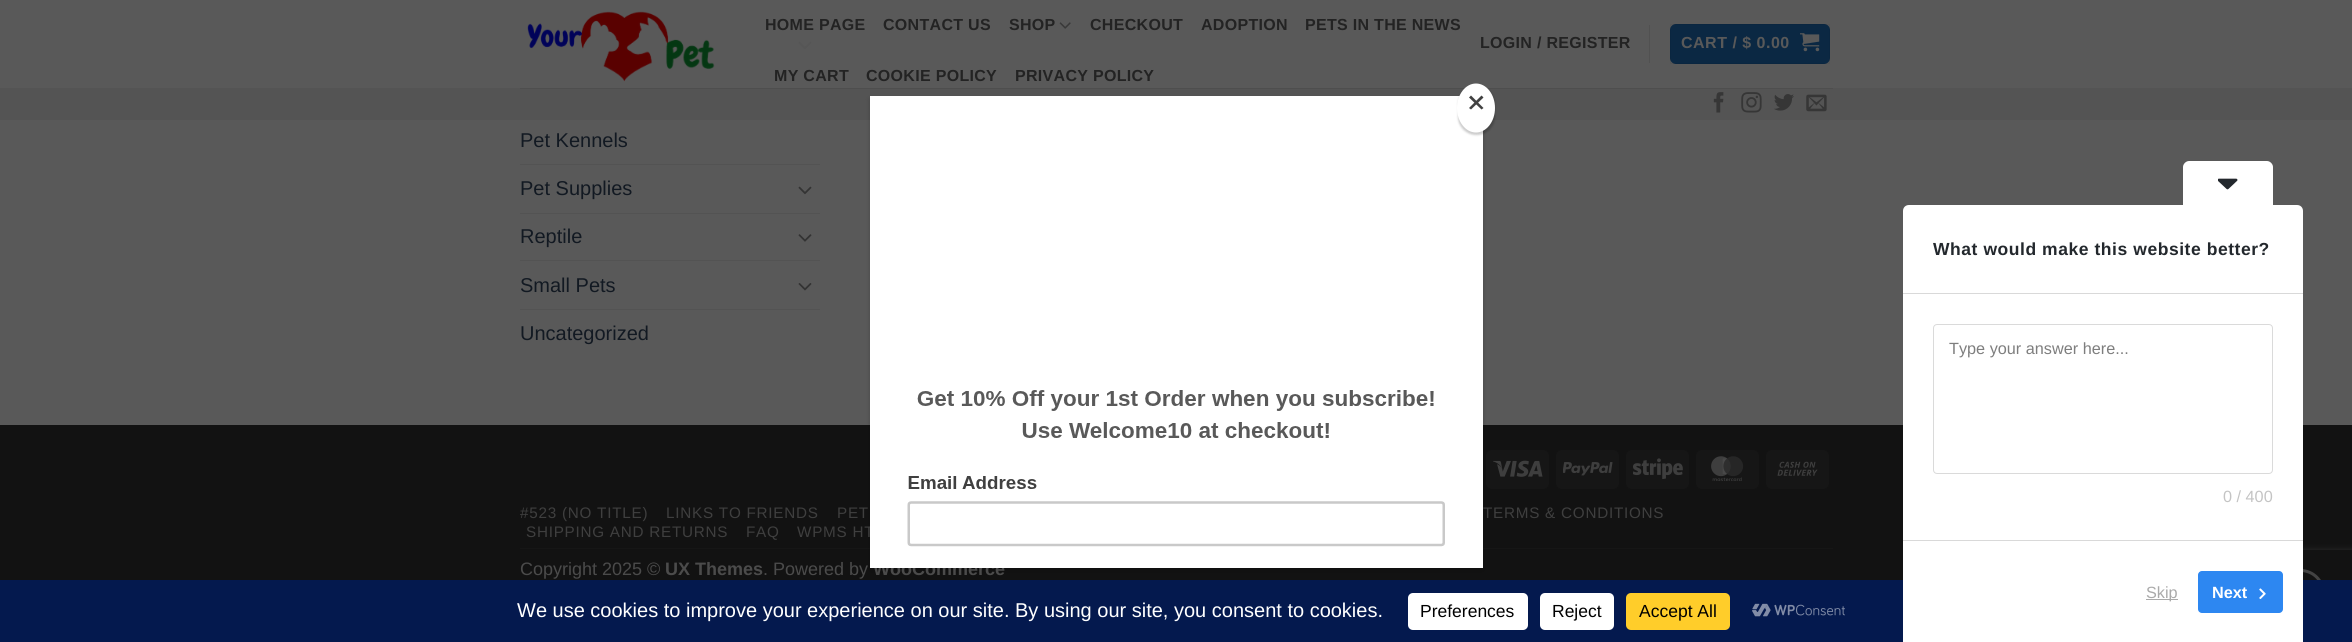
#include <cairo/cairo.h>
#include <math.h>
#include <stddef.h>


static void draw_spaced(cairo_t *cr, double x, double y, const char *s, double letter, double word) {
  cairo_move_to(cr, x, y);
  while (*s) {
    char ch[5] = {0};
    int n = 0;
    do ch[n++] = *s++; while ((*s & 0xC0) == 0x80);
    cairo_show_text(cr, ch);
    cairo_rel_move_to(cr, letter + word * (*ch == ' '), 0);
  }
}

static void rounded_rect(cairo_t *cr, double x, double y, double w, double h, double r) {
  cairo_new_sub_path(cr);
  cairo_arc(cr, x + w - r, y + h - r, r, 0, M_PI / 2);
  cairo_arc(cr, x + r, y + h - r, r, M_PI / 2, M_PI);
  cairo_arc(cr, x + r, y + r, r, M_PI, 1.5 * M_PI);
  cairo_arc(cr, x + w - r, y + r, r, 1.5 * M_PI, 2 * M_PI);
  cairo_close_path(cr);
}

static void draw_shadow(cairo_t *cr, double x, double y, double w, double h, double r, double blur, double alpha) {
  cairo_push_group_with_content(cr, CAIRO_CONTENT_ALPHA);
  cairo_set_operator(cr, CAIRO_OPERATOR_SOURCE);
  for (int i = 15; i >= -15 && fmin(w, h) + blur * i / 3 > 0; i -= 2) {
    double e = blur * i / 6;
    cairo_set_source_rgba(cr, 0, 0, 0, alpha * erfc((i - 1) / 8.5) / 2);
    rounded_rect(cr, x - e, y - e, w + 2 * e, h + 2 * e, fmax(0, fmin(r + e + blur * .6, fmin(w, h) / 2 + e)));
    cairo_fill(cr);
  }
  cairo_pattern_t *soft = cairo_pop_group(cr);
  cairo_mask(cr, soft);
  cairo_pattern_destroy(soft);
}

static void draw_image(cairo_t *cr, const char *path, double x, double y, double w, double h) {
  cairo_surface_t *image = cairo_image_surface_create_from_png(path);
  cairo_save(cr);
  cairo_set_source_surface(cr, image, x, y);
  cairo_rectangle(cr, x, y, w, h);
  cairo_fill(cr);
  cairo_restore(cr);
  cairo_surface_destroy(image);
}

static void draw(cairo_t *cr) {
  cairo_set_source_rgb(cr, 89 / 255.0, 89 / 255.0, 89 / 255.0);
  cairo_paint(cr);
  draw_image(cr, "images/1.png", 527, 11, 188, 71);
  draw_image(cr, "images/2.png", 1059, 22, 12, 7);
  cairo_set_source_rgb(cr, 81 / 255.0, 81 / 255.0, 81 / 255.0);
  cairo_rectangle(cr, 1649, 25, 1, 38);
  cairo_fill(cr);
  cairo_set_source_rgb(cr, 11 / 255.0, 40 / 255.0, 67 / 255.0);
  rounded_rect(cr, 1670, 24, 160, 40, 6);
  cairo_fill(cr);
  cairo_rectangle(cr, 1670.5, 24.5, 159, 39);
  cairo_set_source_rgba(cr, 0, 0, 0, 0.05);
  cairo_set_line_width(cr, 1);
  cairo_stroke(cr);
  draw_image(cr, "images/3.png", 1800, 33, 20, 19);
  cairo_set_source_rgb(cr, 84 / 255.0, 84 / 255.0, 84 / 255.0);
  cairo_rectangle(cr, 0, 88, 2352, 32);
  cairo_fill(cr);
  cairo_set_source_rgb(cr, 78 / 255.0, 78 / 255.0, 78 / 255.0);
  cairo_rectangle(cr, 520, 88, 1313, 1);
  cairo_fill(cr);
  draw_image(cr, "images/4.png", 1713, 92, 11, 21);
  draw_image(cr, "images/5.png", 1741, 92, 21, 21);
  draw_image(cr, "images/6.png", 1774, 94, 20, 17);
  draw_image(cr, "images/7.png", 1806, 94, 21, 18);
  draw_image(cr, "images/8.png", 798, 41, 14, 9);
  cairo_set_source_rgb(cr, 83 / 255.0, 83 / 255.0, 83 / 255.0);
  cairo_rectangle(cr, 520, 164, 300, 1);
  cairo_fill(cr);
  draw_image(cr, "images/9.png", 798, 186, 14, 9);
  cairo_rectangle(cr, 520, 213, 300, 1);
  cairo_fill(cr);
  draw_image(cr, "images/10.png", 798, 234, 14, 8);
  cairo_rectangle(cr, 520, 260, 300, 1);
  cairo_fill(cr);
  draw_image(cr, "images/11.png", 798, 283, 14, 8);
  cairo_rectangle(cr, 520, 309, 300, 1);
  cairo_fill(cr);
  cairo_set_source_rgb(cr, 18 / 255.0, 18 / 255.0, 18 / 255.0);
  cairo_rectangle(cr, 0, 425, 2352, 155);
  cairo_fill(cr);
  cairo_set_source_rgb(cr, 22 / 255.0, 22 / 255.0, 22 / 255.0);
  rounded_rect(cr, 1486, 450, 63, 39, 6);
  cairo_fill(cr);
  draw_image(cr, "images/12.png", 1493, 460, 50, 17);
  rounded_rect(cr, 1556, 450, 63, 39, 6);
  cairo_fill(cr);
  draw_image(cr, "images/13.png", 1563, 462, 50, 14);
  rounded_rect(cr, 1626, 450, 63, 39, 6);
  cairo_fill(cr);
  draw_image(cr, "images/14.png", 1633, 458, 50, 22);
  rounded_rect(cr, 1696, 450, 63, 39, 6);
  cairo_fill(cr);
  draw_image(cr, "images/15.png", 1711, 456, 33, 25);
  rounded_rect(cr, 1766, 450, 63, 39, 6);
  cairo_fill(cr);
  draw_image(cr, "images/16.png", 1777, 461, 41, 15);
  cairo_rectangle(cr, 520, 548, 1313, 1);
  cairo_fill(cr);
  cairo_save(cr);
  cairo_rectangle(cr, 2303, 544, 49, 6);
  cairo_clip(cr);
  cairo_set_source_rgb(cr, 45 / 255.0, 45 / 255.0, 45 / 255.0);
  draw_shadow(cr, 2265, 550, 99, 75, 2.5, 3, 1);
  cairo_restore(cr);
  cairo_arc(cr, 2300.5, 593.5, 23, 0, 2 * M_PI);
  cairo_set_source_rgb(cr, 67 / 255.0, 67 / 255.0, 67 / 255.0);
  cairo_set_line_width(cr, 3);
  cairo_stroke(cr);
  cairo_set_source_rgb(cr, 0, 0, 0);
  draw_shadow(cr, 870, 99, 613, 471, 0, 2.5, 0.2);
  cairo_set_source_rgb(cr, 4 / 255.0, 25 / 255.0, 78 / 255.0);
  cairo_rectangle(cr, 0, 580, 2352, 62);
  cairo_fill(cr);
  cairo_set_source_rgb(cr, 1, 1, 1);
  cairo_new_path(cr);
  cairo_move_to(cr, 1909, 205);
  cairo_line_to(cr, 2297, 205);
  cairo_curve_to(cr, 2300.5, 205, 2303, 207.5, 2303, 211);
  cairo_line_to(cr, 2303, 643);
  cairo_line_to(cr, 1903, 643);
  cairo_line_to(cr, 1903, 211);
  cairo_curve_to(cr, 1903, 207.5, 1905.5, 205, 1909, 205);
  cairo_close_path(cr);
  cairo_fill(cr);
  cairo_new_path(cr);
  cairo_move_to(cr, 2189, 161);
  cairo_line_to(cr, 2267, 161);
  cairo_curve_to(cr, 2270, 161, 2273, 164, 2273, 167);
  cairo_line_to(cr, 2273, 205);
  cairo_line_to(cr, 2183, 205);
  cairo_line_to(cr, 2183, 167);
  cairo_curve_to(cr, 2183, 164, 2186, 161, 2189, 161);
  cairo_close_path(cr);
  cairo_fill(cr);
  draw_image(cr, "images/18.png", 2218, 178, 20, 12);
  cairo_set_source_rgb(cr, 217 / 255.0, 217 / 255.0, 217 / 255.0);
  cairo_rectangle(cr, 1903, 293, 400, 1);
  cairo_fill(cr);
  cairo_rectangle(cr, 1903, 540, 400, 1);
  cairo_fill(cr);
  rounded_rect(cr, 1933.5, 324.5, 339, 149, 3.5);
  cairo_set_source_rgb(cr, 218 / 255.0, 218 / 255.0, 218 / 255.0);
  cairo_set_line_width(cr, 1);
  cairo_stroke(cr);
  cairo_set_source_rgb(cr, 170 / 255.0, 170 / 255.0, 170 / 255.0);
  cairo_rectangle(cr, 2146, 599, 32, 1);
  cairo_fill(cr);
  cairo_set_source_rgb(cr, 45 / 255.0, 135 / 255.0, 241 / 255.0);
  rounded_rect(cr, 2198, 571, 85, 42, 4);
  cairo_fill(cr);
  draw_image(cr, "images/19.png", 2259, 588, 7, 11);
  cairo_set_source_rgb(cr, 1, 1, 1);
  rounded_rect(cr, 1408, 593, 120, 37, 5);
  cairo_fill(cr);
  rounded_rect(cr, 1540, 593, 74, 37, 5);
  cairo_fill(cr);
  cairo_set_source_rgb(cr, 1, 205 / 255.0, 42 / 255.0);
  rounded_rect(cr, 1626, 593, 104, 37, 5);
  cairo_fill(cr);
  draw_image(cr, "images/20.png", 1752, 603, 93, 14);
  cairo_select_font_face(cr, "Liberation Sans", CAIRO_FONT_SLANT_NORMAL, CAIRO_FONT_WEIGHT_BOLD);
  cairo_set_font_size(cr, 16);
  cairo_set_source_rgb(cr, 35 / 255.0, 35 / 255.0, 35 / 255.0);
  draw_spaced(cr, 765, 30, "HOME PAGE", 0.3, 0);
  draw_spaced(cr, 883, 30, "CONTACT US", 0.3, 0);
  draw_spaced(cr, 1009, 30, "SHOP", 0.3, 0);
  draw_spaced(cr, 1090, 30, "CHECKOUT", 0.3, 0);
  draw_spaced(cr, 1201, 30, "ADOPTION", 0.3, 0);
  draw_spaced(cr, 1305, 30, "PETS IN THE NEWS", 0.3, 0);
  draw_spaced(cr, 774, 81, "MY CART", 0.3, 0);
  draw_spaced(cr, 866, 81, "COOKIE POLICY", 0.3, 0);
  draw_spaced(cr, 1015, 81, "PRIVACY POLICY", 0.3, 0);
  draw_spaced(cr, 1480, 48, "LOGIN / REGISTER", 0.3, 0);
  cairo_set_source_rgb(cr, 89 / 255.0, 89 / 255.0, 89 / 255.0);
  draw_spaced(cr, 1681, 48, "CART / $ 0.00", 0.5, 0);
  cairo_select_font_face(cr, "Liberation Sans", CAIRO_FONT_SLANT_NORMAL, CAIRO_FONT_WEIGHT_NORMAL);
  cairo_set_font_size(cr, 20);
  cairo_set_source_rgb(cr, 18 / 255.0, 25 / 255.0, 34 / 255.0);
  cairo_move_to(cr, 520, 147);
  cairo_show_text(cr, "Pet Kennels");
  cairo_move_to(cr, 520, 195);
  cairo_show_text(cr, "Pet Supplies");
  cairo_move_to(cr, 520, 243);
  cairo_show_text(cr, "Reptile");
  cairo_move_to(cr, 520, 292);
  cairo_show_text(cr, "Small Pets");
  cairo_move_to(cr, 520, 340);
  cairo_show_text(cr, "Uncategorized");
  cairo_set_font_size(cr, 15.25);
  cairo_set_source_rgb(cr, 63 / 255.0, 63 / 255.0, 63 / 255.0);
  draw_spaced(cr, 520, 518, "#523 (NO TITLE)", 0.75, 0);
  draw_spaced(cr, 666, 518, "LINKS TO FRIENDS", 0.75, 0);
  draw_spaced(cr, 837, 518, "PET", 0.75, 0);
  draw_spaced(cr, 1483, 518, "TERMS & CONDITIONS", 0.75, 0);
  draw_spaced(cr, 526, 537, "SHIPPING AND RETURNS", 0.75, 0);
  draw_spaced(cr, 746, 537, "FAQ", 0.75, 0);
  draw_spaced(cr, 797, 537, "WPMS HT", 0.75, 0);
  cairo_set_font_size(cr, 18);
  cairo_set_source_rgb(cr, 75 / 255.0, 75 / 255.0, 75 / 255.0);
  cairo_move_to(cr, 520, 575);
  cairo_show_text(cr, "Copyright 2025 ©");
  cairo_select_font_face(cr, "Liberation Sans", CAIRO_FONT_SLANT_NORMAL, CAIRO_FONT_WEIGHT_BOLD);
  cairo_move_to(cr, 665, 575);
  cairo_show_text(cr, "UX Themes");
  cairo_select_font_face(cr, "Liberation Sans", CAIRO_FONT_SLANT_NORMAL, CAIRO_FONT_WEIGHT_NORMAL);
  cairo_move_to(cr, 763, 575);
  cairo_show_text(cr, ". Powered by");
  cairo_select_font_face(cr, "Liberation Sans", CAIRO_FONT_SLANT_NORMAL, CAIRO_FONT_WEIGHT_BOLD);
  cairo_move_to(cr, 873, 575);
  cairo_show_text(cr, "WooCommerce");
  draw_image(cr, "images/17.png", 870, 96, 613, 472);
  cairo_set_source_rgb(cr, 0, 0, 0);
  draw_shadow(cr, 1458, 86, 37, 49, 18.5, 1, 0.2);
  cairo_set_source_rgb(cr, 1, 1, 1);
  cairo_new_path(cr);
  cairo_move_to(cr, 1476, 83.5);
  cairo_curve_to(cr, 1486.5, 83.5, 1495, 94.5, 1495, 108);
  cairo_curve_to(cr, 1495, 121.5, 1486.5, 132.5, 1476, 132.5);
  cairo_curve_to(cr, 1465.5, 132.5, 1457, 121.5, 1457, 108);
  cairo_curve_to(cr, 1457, 94.5, 1465.5, 83.5, 1476, 83.5);
  cairo_close_path(cr);
  cairo_fill(cr);
  cairo_set_source_rgb(cr, 65 / 255.0, 65 / 255.0, 65 / 255.0);
  cairo_new_path(cr);
  cairo_move_to(cr, 1481.5, 95.5);
  cairo_line_to(cr, 1483.5, 97.5);
  cairo_line_to(cr, 1471, 109.5);
  cairo_line_to(cr, 1469, 108);
  cairo_close_path(cr);
  cairo_fill(cr);
  cairo_new_path(cr);
  cairo_move_to(cr, 1469, 97.5);
  cairo_line_to(cr, 1471, 95.5);
  cairo_line_to(cr, 1483.5, 108);
  cairo_line_to(cr, 1481.5, 109.5);
  cairo_close_path(cr);
  cairo_fill(cr);
  cairo_set_font_size(cr, 17.5);
  cairo_set_source_rgb(cr, 35 / 255.0, 40 / 255.0, 45 / 255.0);
  draw_spaced(cr, 1933, 255, "What would make this website better?", 0.55, 0);
  cairo_select_font_face(cr, "Liberation Sans", CAIRO_FONT_SLANT_NORMAL, CAIRO_FONT_WEIGHT_NORMAL);
  cairo_set_font_size(cr, 16.25);
  cairo_set_source_rgb(cr, 126 / 255.0, 126 / 255.0, 126 / 255.0);
  cairo_move_to(cr, 1949, 354);
  cairo_show_text(cr, "Type your answer here...");
  cairo_set_source_rgb(cr, 196 / 255.0, 196 / 255.0, 196 / 255.0);
  cairo_move_to(cr, 2223, 502);
  cairo_show_text(cr, "0 / 400");
  cairo_set_source_rgb(cr, 170 / 255.0, 170 / 255.0, 170 / 255.0);
  cairo_move_to(cr, 2146, 598);
  cairo_show_text(cr, "Skip");
  cairo_select_font_face(cr, "Liberation Sans", CAIRO_FONT_SLANT_NORMAL, CAIRO_FONT_WEIGHT_BOLD);
  cairo_set_source_rgb(cr, 1, 1, 1);
  cairo_move_to(cr, 2212, 598);
  cairo_show_text(cr, "Next");
  cairo_select_font_face(cr, "Liberation Sans", CAIRO_FONT_SLANT_NORMAL, CAIRO_FONT_WEIGHT_NORMAL);
  cairo_set_font_size(cr, 20);
  cairo_move_to(cr, 517, 617);
  cairo_show_text(cr, "We use cookies to improve your experience on our site. By using our site, you consent to cookies.");
  cairo_set_font_size(cr, 17.5);
  cairo_set_source_rgb(cr, 0, 0, 0);
  cairo_move_to(cr, 1420, 617);
  cairo_show_text(cr, "Preferences");
  cairo_move_to(cr, 1552, 617);
  cairo_show_text(cr, "Reject");
  cairo_move_to(cr, 1639, 617);
  cairo_show_text(cr, "Accept All");
}

int main(void) {
  cairo_surface_t *surface = cairo_image_surface_create(CAIRO_FORMAT_RGB24, 2352, 642);
  cairo_t *cr = cairo_create(surface);
  cairo_font_options_t *options = cairo_font_options_create();
  cairo_font_options_set_hint_metrics(options, CAIRO_HINT_METRICS_OFF);
  cairo_font_options_set_hint_style(options, CAIRO_HINT_STYLE_NONE);
  cairo_set_font_options(cr, options);
  cairo_set_miter_limit(cr, 4);
  draw(cr);
  cairo_surface_write_to_png(surface, "out.png");
  cairo_font_options_destroy(options);
  cairo_destroy(cr);
  cairo_surface_destroy(surface);
  return 0;
}
